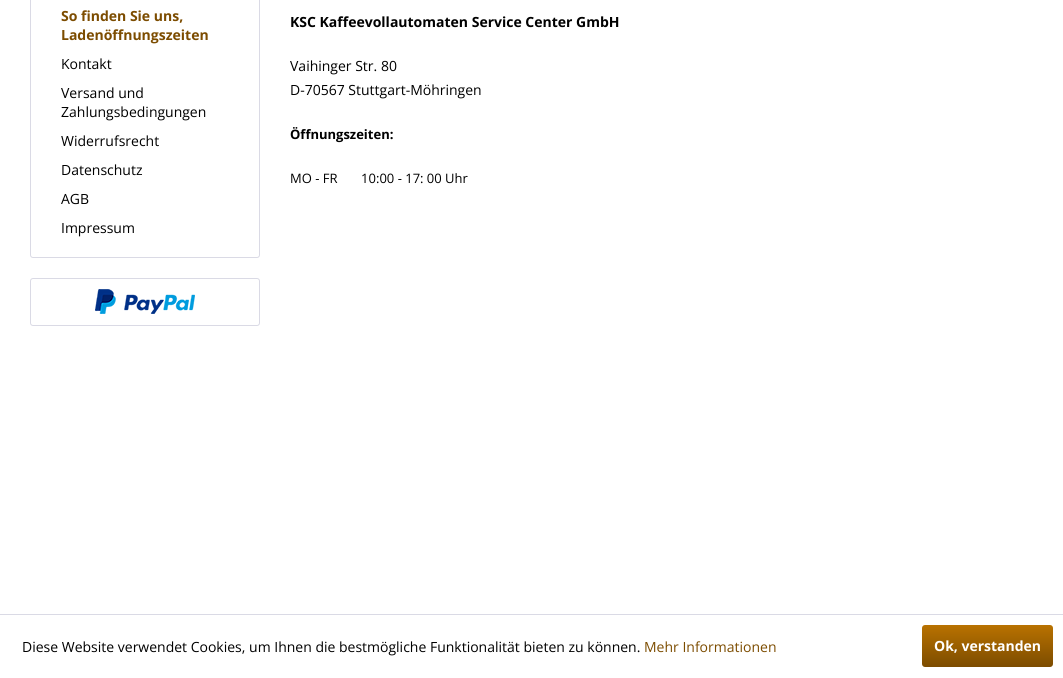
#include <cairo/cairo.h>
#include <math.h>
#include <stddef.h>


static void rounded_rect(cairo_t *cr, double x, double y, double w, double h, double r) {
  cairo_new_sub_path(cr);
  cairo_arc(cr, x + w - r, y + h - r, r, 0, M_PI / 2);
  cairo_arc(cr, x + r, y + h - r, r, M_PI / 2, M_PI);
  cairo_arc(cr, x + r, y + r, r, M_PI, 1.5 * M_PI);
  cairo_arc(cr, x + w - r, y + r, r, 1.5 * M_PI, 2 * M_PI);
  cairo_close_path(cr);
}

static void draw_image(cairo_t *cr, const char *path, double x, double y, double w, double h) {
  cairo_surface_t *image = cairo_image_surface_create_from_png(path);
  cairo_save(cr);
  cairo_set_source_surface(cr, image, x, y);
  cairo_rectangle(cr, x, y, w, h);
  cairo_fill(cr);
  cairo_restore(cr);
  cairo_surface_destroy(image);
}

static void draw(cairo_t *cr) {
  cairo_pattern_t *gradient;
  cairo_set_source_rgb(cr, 1, 1, 1);
  cairo_paint(cr);
  rounded_rect(cr, 30.5, -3.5, 229, 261, 2.5);
  cairo_set_source_rgb(cr, 218 / 255.0, 218 / 255.0, 229 / 255.0);
  cairo_set_line_width(cr, 1);
  cairo_stroke(cr);
  rounded_rect(cr, 30.5, 278.5, 229, 47, 2.5);
  cairo_stroke(cr);
  draw_image(cr, "images/1.png", 95, 289, 100, 25);
  cairo_rectangle(cr, 0, 614, 1063, 1);
  cairo_fill(cr);
  gradient = cairo_pattern_create_linear(988, 625, 988, 667);
  cairo_pattern_add_color_stop_rgba(gradient, 0, 185 / 255.0, 114 / 255.0, 0, 1);
  cairo_pattern_add_color_stop_rgba(gradient, 1, 124 / 255.0, 76 / 255.0, 0, 1);
  cairo_set_source(cr, gradient);
  cairo_pattern_destroy(gradient);
  rounded_rect(cr, 922, 625, 131, 42, 3);
  cairo_fill(cr);
  cairo_select_font_face(cr, "Open Sans", CAIRO_FONT_SLANT_NORMAL, CAIRO_FONT_WEIGHT_BOLD);
  cairo_set_font_size(cr, 14);
  cairo_set_source_rgb(cr, 124 / 255.0, 76 / 255.0, 0);
  cairo_move_to(cr, 61, 21);
  cairo_show_text(cr, "So finden Sie uns,");
  cairo_move_to(cr, 61, 40);
  cairo_show_text(cr, "Ladenöffnungszeiten");
  cairo_select_font_face(cr, "Open Sans", CAIRO_FONT_SLANT_NORMAL, CAIRO_FONT_WEIGHT_NORMAL);
  cairo_set_source_rgb(cr, 0, 0, 0);
  cairo_move_to(cr, 61, 69);
  cairo_show_text(cr, "Kontakt");
  cairo_move_to(cr, 61, 98);
  cairo_show_text(cr, "Versand und");
  cairo_move_to(cr, 61, 117);
  cairo_show_text(cr, "Zahlungsbedingungen");
  cairo_move_to(cr, 61, 146);
  cairo_show_text(cr, "Widerrufsrecht");
  cairo_move_to(cr, 61, 175);
  cairo_show_text(cr, "Datenschutz");
  cairo_move_to(cr, 61, 204);
  cairo_show_text(cr, "AGB");
  cairo_move_to(cr, 61, 233);
  cairo_show_text(cr, "Impressum");
  cairo_select_font_face(cr, "Open Sans", CAIRO_FONT_SLANT_NORMAL, CAIRO_FONT_WEIGHT_BOLD);
  cairo_move_to(cr, 290, 27);
  cairo_show_text(cr, "KSC Kaffeevollautomaten Service Center GmbH");
  cairo_select_font_face(cr, "Open Sans", CAIRO_FONT_SLANT_NORMAL, CAIRO_FONT_WEIGHT_NORMAL);
  cairo_move_to(cr, 290, 71);
  cairo_show_text(cr, "Vaihinger Str. 80");
  cairo_move_to(cr, 290, 95);
  cairo_show_text(cr, "D-70567 Stuttgart-Möhringen");
  cairo_select_font_face(cr, "Open Sans", CAIRO_FONT_SLANT_NORMAL, CAIRO_FONT_WEIGHT_BOLD);
  cairo_set_font_size(cr, 13);
  cairo_move_to(cr, 290, 139);
  cairo_show_text(cr, "Öffnungszeiten:");
  cairo_select_font_face(cr, "Open Sans", CAIRO_FONT_SLANT_NORMAL, CAIRO_FONT_WEIGHT_NORMAL);
  cairo_move_to(cr, 290, 183);
  cairo_show_text(cr, "MO - FR       10:00 - 17: 00 Uhr");
  cairo_set_font_size(cr, 14);
  cairo_move_to(cr, 22, 652);
  cairo_show_text(cr, "Diese Website verwendet Cookies, um Ihnen die bestmögliche Funktionalität bieten zu können.");
  cairo_set_source_rgb(cr, 124 / 255.0, 76 / 255.0, 0);
  cairo_move_to(cr, 644, 652);
  cairo_show_text(cr, "Mehr Informationen");
  cairo_select_font_face(cr, "Open Sans", CAIRO_FONT_SLANT_NORMAL, CAIRO_FONT_WEIGHT_BOLD);
  cairo_set_source_rgb(cr, 1, 1, 1);
  cairo_move_to(cr, 934, 651);
  cairo_show_text(cr, "Ok, verstanden");
}

int main(void) {
  cairo_surface_t *surface = cairo_image_surface_create(CAIRO_FORMAT_RGB24, 1063, 678);
  cairo_t *cr = cairo_create(surface);
  cairo_font_options_t *options = cairo_font_options_create();
  cairo_font_options_set_hint_metrics(options, CAIRO_HINT_METRICS_OFF);
  cairo_font_options_set_hint_style(options, CAIRO_HINT_STYLE_NONE);
  cairo_set_font_options(cr, options);
  cairo_set_miter_limit(cr, 4);
  draw(cr);
  cairo_surface_write_to_png(surface, "out.png");
  cairo_font_options_destroy(options);
  cairo_destroy(cr);
  cairo_surface_destroy(surface);
  return 0;
}
